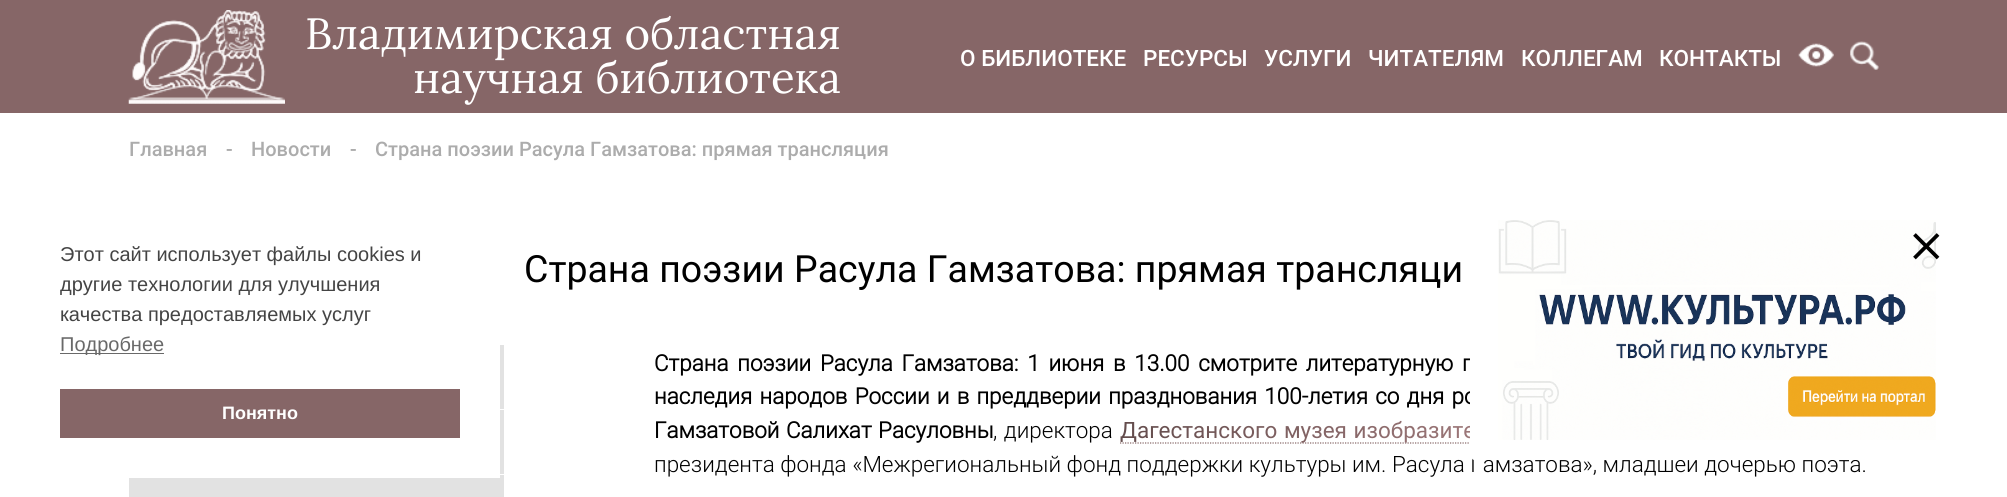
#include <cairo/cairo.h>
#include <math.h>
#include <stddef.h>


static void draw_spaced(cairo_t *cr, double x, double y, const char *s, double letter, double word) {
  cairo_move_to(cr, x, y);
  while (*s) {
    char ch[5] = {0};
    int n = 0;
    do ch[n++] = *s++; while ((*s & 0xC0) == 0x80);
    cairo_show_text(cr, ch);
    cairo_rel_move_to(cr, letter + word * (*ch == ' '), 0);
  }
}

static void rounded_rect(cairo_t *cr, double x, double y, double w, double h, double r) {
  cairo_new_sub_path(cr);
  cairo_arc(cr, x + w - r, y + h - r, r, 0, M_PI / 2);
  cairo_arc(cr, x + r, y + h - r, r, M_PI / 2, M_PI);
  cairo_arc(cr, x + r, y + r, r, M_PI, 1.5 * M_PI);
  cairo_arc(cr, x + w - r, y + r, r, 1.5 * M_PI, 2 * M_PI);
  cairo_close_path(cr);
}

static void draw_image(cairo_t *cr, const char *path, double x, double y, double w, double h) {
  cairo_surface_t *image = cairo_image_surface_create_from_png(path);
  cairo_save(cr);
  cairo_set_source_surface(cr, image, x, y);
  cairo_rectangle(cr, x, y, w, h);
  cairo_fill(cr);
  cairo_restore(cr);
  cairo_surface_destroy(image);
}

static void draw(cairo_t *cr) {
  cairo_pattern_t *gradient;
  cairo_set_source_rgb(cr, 1, 1, 1);
  cairo_paint(cr);
  cairo_set_source_rgb(cr, 134 / 255.0, 102 / 255.0, 103 / 255.0);
  cairo_rectangle(cr, 0, 0, 2007, 113);
  cairo_fill(cr);
  draw_image(cr, "images/1.png", 128, 10, 157, 94);
  draw_image(cr, "images/2.png", 1798, 43, 36, 24);
  draw_image(cr, "images/3.png", 1850, 41, 29, 29);
  cairo_set_source_rgb(cr, 226 / 255.0, 226 / 255.0, 226 / 255.0);
  cairo_rectangle(cr, 129, 475, 375, 22);
  cairo_fill(cr);
  cairo_set_source_rgb(cr, 1, 1, 1);
  cairo_rectangle(cr, 129, 475, 371, 3);
  cairo_fill(cr);
  cairo_set_source_rgb(cr, 105 / 255.0, 105 / 255.0, 105 / 255.0);
  cairo_rectangle(cr, 60, 353, 104, 1);
  cairo_fill(cr);
  cairo_set_source_rgb(cr, 134 / 255.0, 102 / 255.0, 103 / 255.0);
  cairo_rectangle(cr, 60, 389, 400, 49);
  cairo_fill(cr);
  cairo_set_source_rgb(cr, 226 / 255.0, 226 / 255.0, 226 / 255.0);
  cairo_rectangle(cr, 500, 345, 4, 64);
  cairo_fill(cr);
  cairo_rectangle(cr, 500, 410, 4, 64);
  cairo_fill(cr);
  cairo_new_path(cr);
  cairo_move_to(cr, 1120, 443);
  cairo_line_to(cr, 1875, 443);
  cairo_set_source_rgb(cr, 134 / 255.0, 102 / 255.0, 103 / 255.0);
  cairo_set_line_width(cr, 1.2);
  cairo_set_dash(cr, (double[]){1.25, 1.25}, 2, 0);
  cairo_stroke(cr);
  cairo_select_font_face(cr, "Lora", CAIRO_FONT_SLANT_NORMAL, CAIRO_FONT_WEIGHT_NORMAL);
  cairo_set_font_size(cr, 43.75);
  cairo_set_source_rgb(cr, 1, 1, 1);
  cairo_move_to(cr, 305, 49);
  cairo_show_text(cr, "Владимирская областная");
  cairo_move_to(cr, 413, 93);
  cairo_show_text(cr, "научная библиотека");
  cairo_select_font_face(cr, "Roboto Medium", CAIRO_FONT_SLANT_NORMAL, CAIRO_FONT_WEIGHT_NORMAL);
  cairo_set_font_size(cr, 22.5);
  cairo_move_to(cr, 960, 66);
  cairo_show_text(cr, "О БИБЛИОТЕКЕ");
  cairo_move_to(cr, 1143, 66);
  cairo_show_text(cr, "РЕСУРСЫ");
  cairo_move_to(cr, 1264, 66);
  cairo_show_text(cr, "УСЛУГИ");
  cairo_move_to(cr, 1368, 66);
  cairo_show_text(cr, "ЧИТАТЕЛЯМ");
  cairo_move_to(cr, 1521, 66);
  cairo_show_text(cr, "КОЛЛЕГАМ");
  cairo_move_to(cr, 1659, 66);
  cairo_show_text(cr, "КОНТАКТЫ");
  cairo_set_font_size(cr, 20);
  cairo_set_source_rgb(cr, 172 / 255.0, 172 / 255.0, 172 / 255.0);
  cairo_move_to(cr, 129, 156);
  cairo_show_text(cr, "Главная");
  cairo_move_to(cr, 226, 156);
  cairo_show_text(cr, "-");
  cairo_move_to(cr, 251, 156);
  cairo_show_text(cr, "Новости");
  cairo_move_to(cr, 350, 156);
  cairo_show_text(cr, "-");
  cairo_move_to(cr, 375, 156);
  cairo_show_text(cr, "Страна поэзии Расула Гамзатова: прямая трансляция");
  cairo_select_font_face(cr, "Liberation Sans", CAIRO_FONT_SLANT_NORMAL, CAIRO_FONT_WEIGHT_NORMAL);
  cairo_set_source_rgb(cr, 68 / 255.0, 68 / 255.0, 68 / 255.0);
  cairo_move_to(cr, 60, 261);
  cairo_show_text(cr, "Этот сайт использует файлы cookies и");
  cairo_move_to(cr, 60, 291);
  cairo_show_text(cr, "другие технологии для улучшения");
  cairo_move_to(cr, 60, 321);
  cairo_show_text(cr, "качества предоставляемых услуг");
  cairo_set_source_rgb(cr, 105 / 255.0, 105 / 255.0, 105 / 255.0);
  cairo_move_to(cr, 60, 351);
  cairo_show_text(cr, "Подробнее");
  cairo_select_font_face(cr, "Liberation Sans", CAIRO_FONT_SLANT_NORMAL, CAIRO_FONT_WEIGHT_BOLD);
  cairo_set_font_size(cr, 18);
  cairo_set_source_rgb(cr, 1, 1, 1);
  cairo_move_to(cr, 222, 419);
  cairo_show_text(cr, "Понятно");
  cairo_select_font_face(cr, "Roboto", CAIRO_FONT_SLANT_NORMAL, CAIRO_FONT_WEIGHT_NORMAL);
  cairo_set_font_size(cr, 37.5);
  cairo_set_source_rgb(cr, 0, 0, 0);
  cairo_move_to(cr, 524, 282);
  cairo_show_text(cr, "Страна поэзии Расула Гамзатова: прямая трансляци");
  cairo_select_font_face(cr, "Roboto", CAIRO_FONT_SLANT_NORMAL, CAIRO_FONT_WEIGHT_BOLD);
  cairo_set_font_size(cr, 22.5);
  draw_spaced(cr, 654, 371, "Страна поэзии Расула Гамзатова: 1 июня в 13.00 смотрите литературную п", 0, 3.25);
  draw_spaced(cr, 654, 404, "наследия народов России и в преддверии празднования 100-летия со дня ро", 0, 1.75);
  draw_spaced(cr, 654, 438, "Гамзатовой Салихат Расуловны", 0, 1);
  cairo_select_font_face(cr, "Roboto Light", CAIRO_FONT_SLANT_NORMAL, CAIRO_FONT_WEIGHT_NORMAL);
  draw_spaced(cr, 993, 438, ", директора", 0, 1);
  cairo_select_font_face(cr, "Roboto", CAIRO_FONT_SLANT_NORMAL, CAIRO_FONT_WEIGHT_NORMAL);
  gradient = cairo_pattern_create_linear(1120, 431, 1874, 431);
  cairo_pattern_add_color_stop_rgba(gradient, 0, 99 / 255.0, 76 / 255.0, 76 / 255.0, 1);
  cairo_pattern_add_color_stop_rgba(gradient, 0.28, 134 / 255.0, 102 / 255.0, 103 / 255.0, 1);
  cairo_pattern_add_color_stop_rgba(gradient, 1, 218 / 255.0, 168 / 255.0, 170 / 255.0, 1);
  cairo_set_source(cr, gradient);
  cairo_pattern_destroy(gradient);
  draw_spaced(cr, 1120, 438, "Дагестанского музея изобразите", 0, 1);
  cairo_select_font_face(cr, "Roboto Light", CAIRO_FONT_SLANT_NORMAL, CAIRO_FONT_WEIGHT_NORMAL);
  cairo_set_source_rgb(cr, 0, 0, 0);
  cairo_move_to(cr, 654, 472);
  cairo_show_text(cr, "президента фонда «Межрегиональный фонд поддержки культуры им. Расула Гамзатова», младшей дочерью поэта.");
  cairo_set_source_rgb(cr, 1, 1, 1);
  rounded_rect(cr, 1470.5, 210.5, 499, 249, 4.5);
  cairo_fill_preserve(cr);
  cairo_set_line_width(cr, 1);
  cairo_set_dash(cr, NULL, 0, 0);
  cairo_stroke(cr);
  draw_image(cr, "images/4.png", 1498, 220, 438, 220);
  draw_image(cr, "images/5.png", 1913, 233, 27, 27);
}

int main(void) {
  cairo_surface_t *surface = cairo_image_surface_create(CAIRO_FORMAT_RGB24, 2007, 497);
  cairo_t *cr = cairo_create(surface);
  cairo_font_options_t *options = cairo_font_options_create();
  cairo_font_options_set_hint_metrics(options, CAIRO_HINT_METRICS_OFF);
  cairo_font_options_set_hint_style(options, CAIRO_HINT_STYLE_NONE);
  cairo_set_font_options(cr, options);
  cairo_set_miter_limit(cr, 4);
  draw(cr);
  cairo_surface_write_to_png(surface, "out.png");
  cairo_font_options_destroy(options);
  cairo_destroy(cr);
  cairo_surface_destroy(surface);
  return 0;
}
